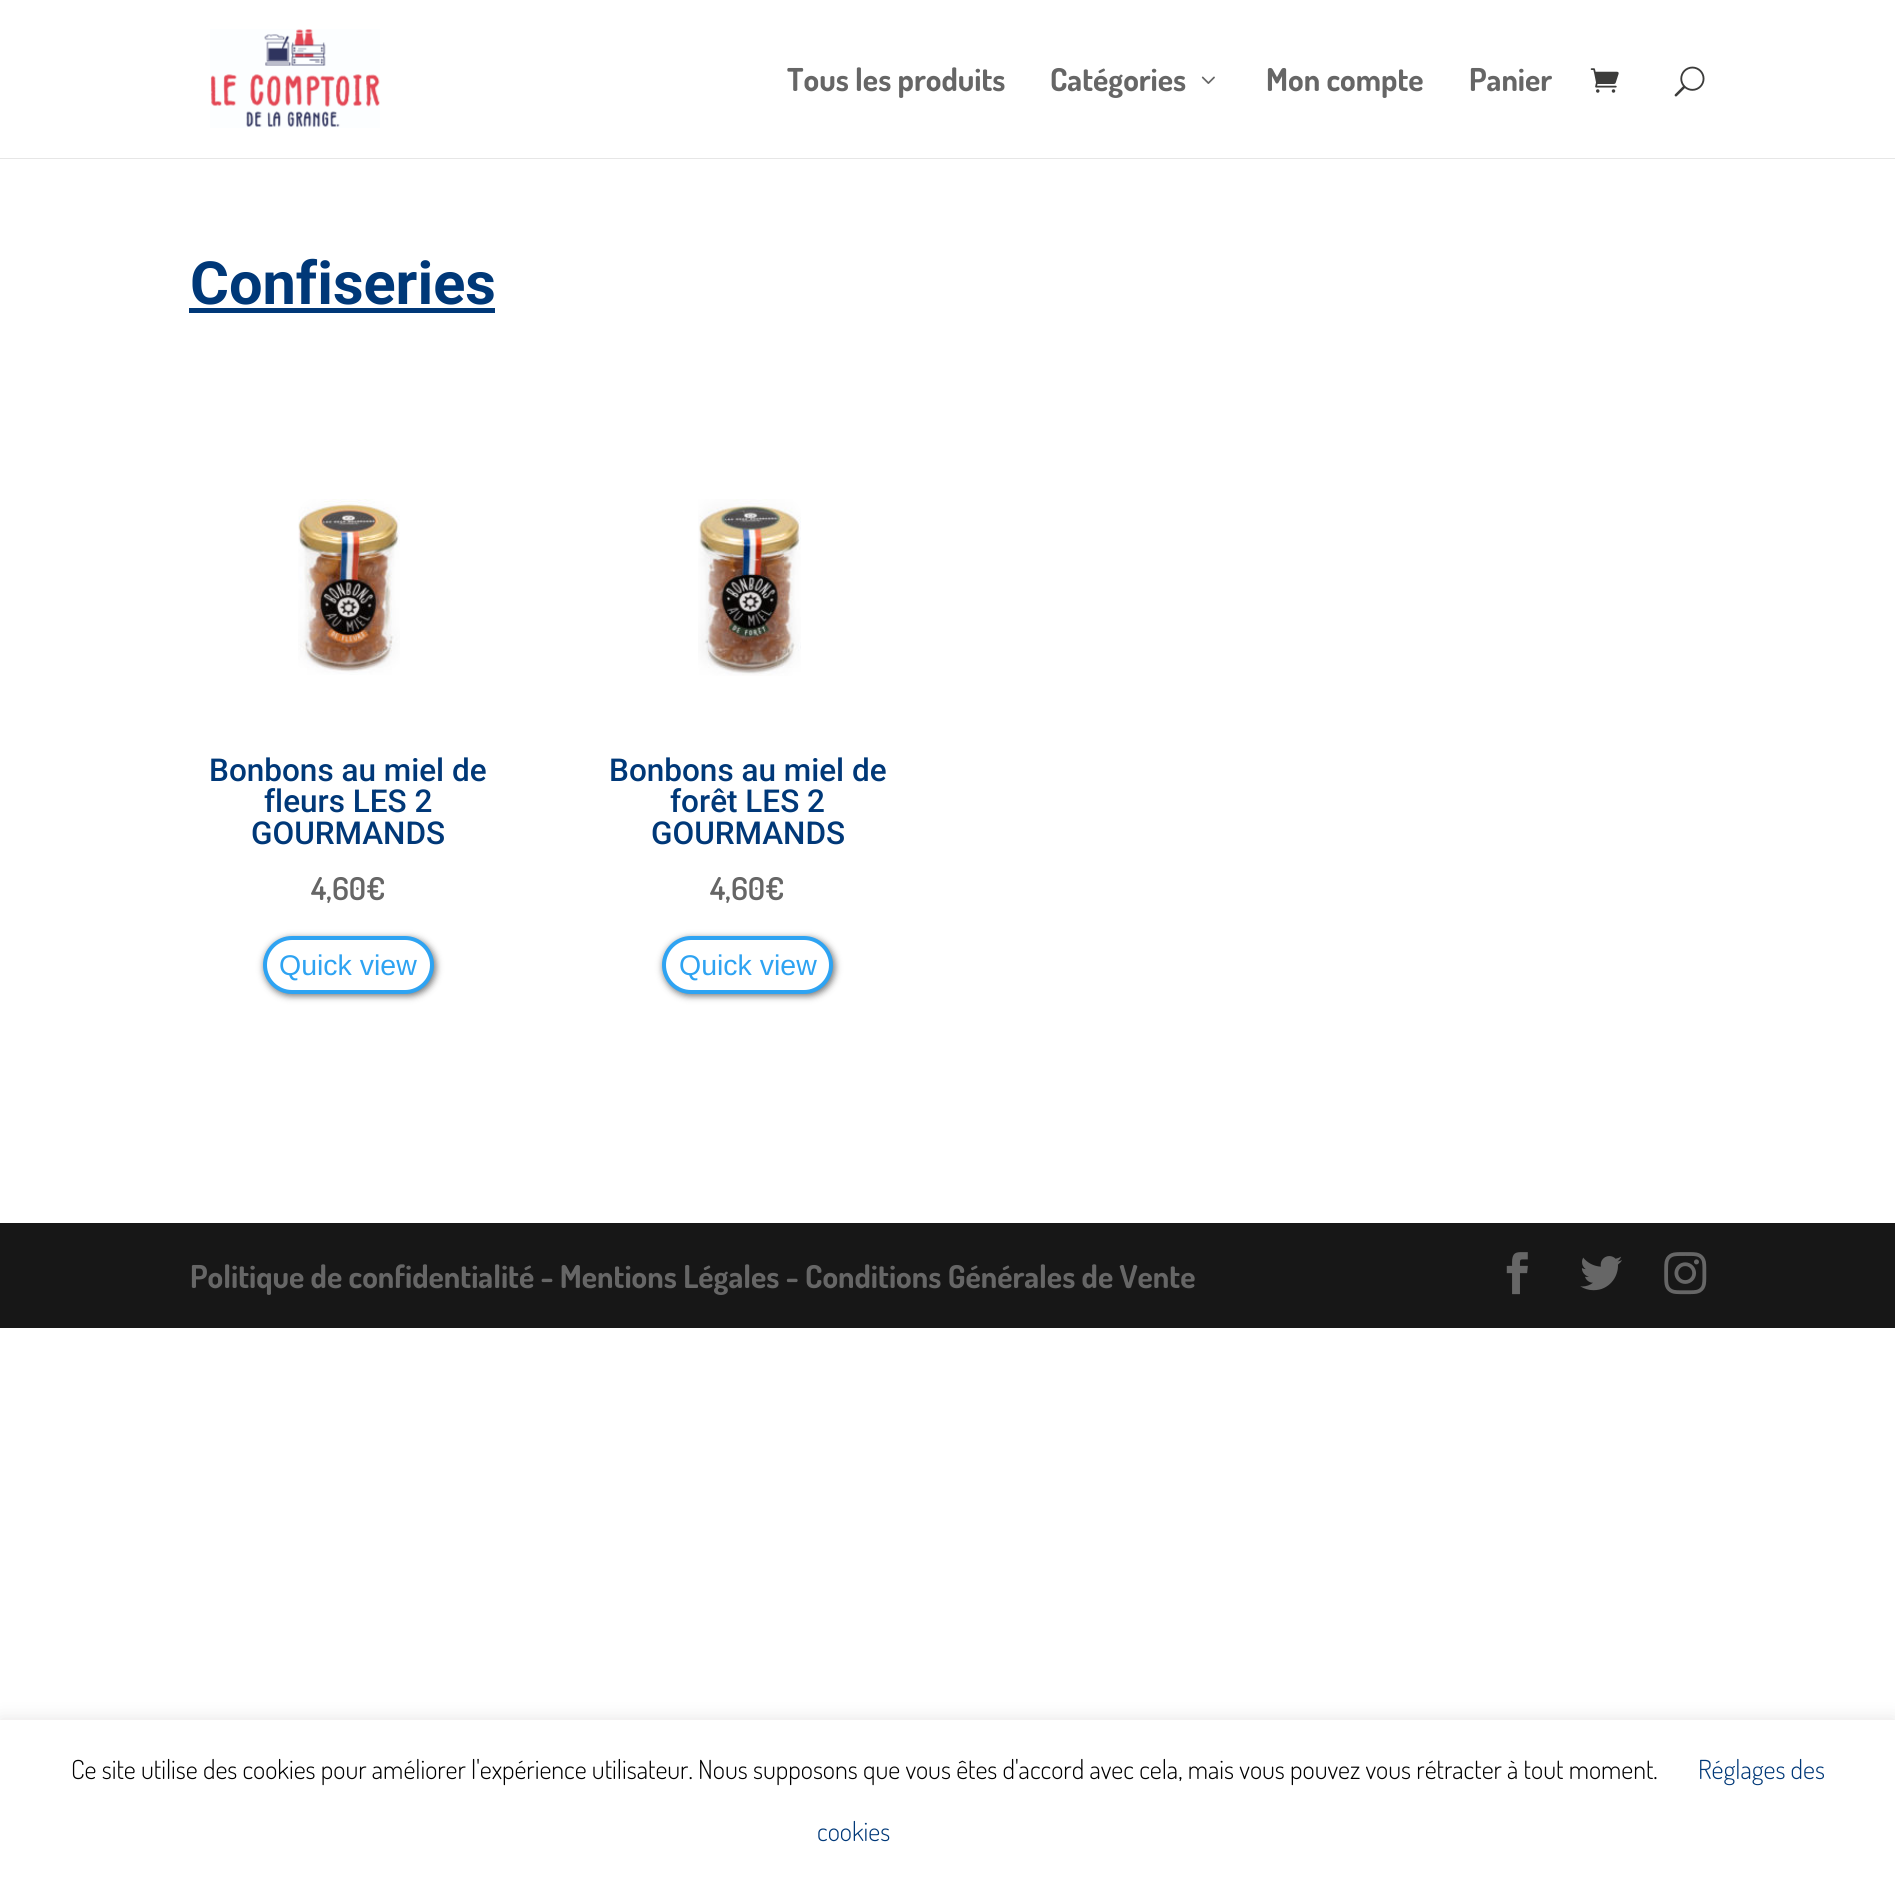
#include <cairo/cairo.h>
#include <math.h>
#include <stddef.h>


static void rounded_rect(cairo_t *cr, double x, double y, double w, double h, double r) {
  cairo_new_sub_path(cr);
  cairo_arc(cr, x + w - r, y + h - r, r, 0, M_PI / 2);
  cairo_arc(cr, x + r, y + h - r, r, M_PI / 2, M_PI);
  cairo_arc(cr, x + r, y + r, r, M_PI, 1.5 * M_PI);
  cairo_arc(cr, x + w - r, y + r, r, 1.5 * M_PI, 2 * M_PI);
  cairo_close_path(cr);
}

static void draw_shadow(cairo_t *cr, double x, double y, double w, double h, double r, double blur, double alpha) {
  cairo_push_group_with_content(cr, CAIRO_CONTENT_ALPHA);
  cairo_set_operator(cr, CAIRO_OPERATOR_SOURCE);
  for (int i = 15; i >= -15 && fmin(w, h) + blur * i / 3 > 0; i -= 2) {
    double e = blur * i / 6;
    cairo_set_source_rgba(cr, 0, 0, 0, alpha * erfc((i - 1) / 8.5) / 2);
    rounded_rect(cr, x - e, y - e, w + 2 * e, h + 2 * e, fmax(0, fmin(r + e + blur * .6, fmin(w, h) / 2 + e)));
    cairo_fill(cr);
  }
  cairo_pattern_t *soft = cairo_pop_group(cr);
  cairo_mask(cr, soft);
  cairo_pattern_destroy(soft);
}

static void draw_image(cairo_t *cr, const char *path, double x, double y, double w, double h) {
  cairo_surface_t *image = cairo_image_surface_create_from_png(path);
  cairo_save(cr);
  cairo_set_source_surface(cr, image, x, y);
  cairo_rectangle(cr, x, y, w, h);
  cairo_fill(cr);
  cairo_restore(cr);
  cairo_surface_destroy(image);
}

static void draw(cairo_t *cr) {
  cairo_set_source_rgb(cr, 1, 1, 1);
  cairo_paint(cr);
  cairo_set_source_rgb(cr, 230 / 255.0, 230 / 255.0, 230 / 255.0);
  cairo_rectangle(cr, 0, 158, 1895, 1);
  cairo_fill(cr);
  draw_image(cr, "images/1.png", 210, 29, 170, 99);
  draw_image(cr, "images/2.png", 1201, 76, 14, 8);
  draw_image(cr, "images/3.png", 1590, 68, 29, 25);
  draw_image(cr, "images/4.png", 1674, 66, 31, 31);
  cairo_set_source_rgb(cr, 0, 56 / 255.0, 120 / 255.0);
  cairo_rectangle(cr, 189, 308, 306, 5);
  cairo_fill(cr);
  draw_image(cr, "images/5.png", 298, 499, 102, 176);
  cairo_set_source_rgb(cr, 119 / 255.0, 119 / 255.0, 119 / 255.0);
  draw_shadow(cr, 264, 938, 172, 58, 29, 3.5, 1);
  cairo_set_source_rgb(cr, 1, 1, 1);
  rounded_rect(cr, 265, 938, 167, 54, 27);
  cairo_fill_preserve(cr);
  cairo_set_source_rgb(cr, 46 / 255.0, 163 / 255.0, 242 / 255.0);
  cairo_set_line_width(cr, 4);
  cairo_stroke(cr);
  draw_image(cr, "images/6.png", 698, 499, 103, 177);
  cairo_set_source_rgb(cr, 119 / 255.0, 119 / 255.0, 119 / 255.0);
  draw_shadow(cr, 663, 938, 172, 58, 29, 3.5, 1);
  cairo_set_source_rgb(cr, 1, 1, 1);
  rounded_rect(cr, 664, 938, 167, 54, 27);
  cairo_fill_preserve(cr);
  cairo_set_source_rgb(cr, 46 / 255.0, 163 / 255.0, 242 / 255.0);
  cairo_stroke(cr);
  cairo_set_source_rgb(cr, 23 / 255.0, 23 / 255.0, 23 / 255.0);
  cairo_rectangle(cr, 0, 1223, 1895, 105);
  cairo_fill(cr);
  draw_image(cr, "images/7.png", 1506, 1252, 22, 43);
  draw_image(cr, "images/8.png", 1580, 1256, 42, 35);
  draw_image(cr, "images/9.png", 1664, 1252, 43, 43);
  cairo_set_source_rgb(cr, 172 / 255.0, 171 / 255.0, 171 / 255.0);
  draw_shadow(cr, 0, 1719, 1895, 169, 0, 9, 0.3);
  cairo_set_source_rgb(cr, 1, 1, 1);
  cairo_rectangle(cr, 0, 1720, 1895, 169);
  cairo_fill(cr);
  cairo_select_font_face(cr, "Dosis", CAIRO_FONT_SLANT_NORMAL, CAIRO_FONT_WEIGHT_BOLD);
  cairo_set_font_size(cr, 31.5);
  cairo_set_source_rgb(cr, 102 / 255.0, 102 / 255.0, 102 / 255.0);
  cairo_move_to(cr, 787, 91);
  cairo_show_text(cr, "Tous les produits");
  cairo_move_to(cr, 1050, 91);
  cairo_show_text(cr, "Catégories");
  cairo_move_to(cr, 1266, 91);
  cairo_show_text(cr, "Mon compte");
  cairo_move_to(cr, 1469, 91);
  cairo_show_text(cr, "Panier");
  cairo_select_font_face(cr, "Roboto", CAIRO_FONT_SLANT_NORMAL, CAIRO_FONT_WEIGHT_BOLD);
  cairo_set_font_size(cr, 59.5);
  cairo_set_source_rgb(cr, 0, 56 / 255.0, 120 / 255.0);
  cairo_move_to(cr, 190, 304);
  cairo_show_text(cr, "Confiseries");
  cairo_select_font_face(cr, "Roboto Medium", CAIRO_FONT_SLANT_NORMAL, CAIRO_FONT_WEIGHT_NORMAL);
  cairo_set_font_size(cr, 31.5);
  cairo_move_to(cr, 209, 781);
  cairo_show_text(cr, "Bonbons au miel de");
  cairo_move_to(cr, 264, 812);
  cairo_show_text(cr, "fleurs LES 2");
  cairo_move_to(cr, 251, 844);
  cairo_show_text(cr, "GOURMANDS");
  cairo_select_font_face(cr, "Dosis SemiBold", CAIRO_FONT_SLANT_NORMAL, CAIRO_FONT_WEIGHT_NORMAL);
  cairo_set_source_rgb(cr, 102 / 255.0, 102 / 255.0, 102 / 255.0);
  cairo_move_to(cr, 311, 900);
  cairo_show_text(cr, "4,60€");
  cairo_select_font_face(cr, "Liberation Sans", CAIRO_FONT_SLANT_NORMAL, CAIRO_FONT_WEIGHT_NORMAL);
  cairo_set_font_size(cr, 28.5);
  cairo_set_source_rgb(cr, 46 / 255.0, 163 / 255.0, 242 / 255.0);
  cairo_move_to(cr, 279, 975);
  cairo_show_text(cr, "Quick view");
  cairo_select_font_face(cr, "Roboto Medium", CAIRO_FONT_SLANT_NORMAL, CAIRO_FONT_WEIGHT_NORMAL);
  cairo_set_font_size(cr, 31.5);
  cairo_set_source_rgb(cr, 0, 56 / 255.0, 120 / 255.0);
  cairo_move_to(cr, 609, 781);
  cairo_show_text(cr, "Bonbons au miel de");
  cairo_move_to(cr, 670, 812);
  cairo_show_text(cr, "forêt LES 2");
  cairo_move_to(cr, 651, 844);
  cairo_show_text(cr, "GOURMANDS");
  cairo_select_font_face(cr, "Dosis SemiBold", CAIRO_FONT_SLANT_NORMAL, CAIRO_FONT_WEIGHT_NORMAL);
  cairo_set_source_rgb(cr, 102 / 255.0, 102 / 255.0, 102 / 255.0);
  cairo_move_to(cr, 710, 900);
  cairo_show_text(cr, "4,60€");
  cairo_select_font_face(cr, "Liberation Sans", CAIRO_FONT_SLANT_NORMAL, CAIRO_FONT_WEIGHT_NORMAL);
  cairo_set_font_size(cr, 28.5);
  cairo_set_source_rgb(cr, 46 / 255.0, 163 / 255.0, 242 / 255.0);
  cairo_move_to(cr, 679, 975);
  cairo_show_text(cr, "Quick view");
  cairo_select_font_face(cr, "Dosis", CAIRO_FONT_SLANT_NORMAL, CAIRO_FONT_WEIGHT_BOLD);
  cairo_set_font_size(cr, 31.5);
  cairo_set_source_rgb(cr, 102 / 255.0, 102 / 255.0, 102 / 255.0);
  cairo_move_to(cr, 190, 1288);
  cairo_show_text(cr, "Politique de confidentialité - Mentions Légales - Conditions Générales de Vente");
  cairo_select_font_face(cr, "Dosis Light", CAIRO_FONT_SLANT_NORMAL, CAIRO_FONT_WEIGHT_NORMAL);
  cairo_set_font_size(cr, 26.25);
  cairo_set_source_rgb(cr, 0, 0, 0);
  cairo_move_to(cr, 71, 1779);
  cairo_show_text(cr, "Ce site utilise des cookies pour améliorer l'expérience utilisateur. Nous supposons que vous êtes d'accord avec cela, mais vous pouvez vous rétracter à tout moment.");
  cairo_set_source_rgb(cr, 0, 56 / 255.0, 120 / 255.0);
  cairo_move_to(cr, 1698, 1779);
  cairo_show_text(cr, "Réglages des");
  cairo_move_to(cr, 817, 1841);
  cairo_show_text(cr, "cookies");
}

int main(void) {
  cairo_surface_t *surface = cairo_image_surface_create(CAIRO_FORMAT_RGB24, 1895, 1889);
  cairo_t *cr = cairo_create(surface);
  cairo_font_options_t *options = cairo_font_options_create();
  cairo_font_options_set_hint_metrics(options, CAIRO_HINT_METRICS_OFF);
  cairo_font_options_set_hint_style(options, CAIRO_HINT_STYLE_NONE);
  cairo_set_font_options(cr, options);
  cairo_set_miter_limit(cr, 4);
  draw(cr);
  cairo_surface_write_to_png(surface, "out.png");
  cairo_font_options_destroy(options);
  cairo_destroy(cr);
  cairo_surface_destroy(surface);
  return 0;
}
